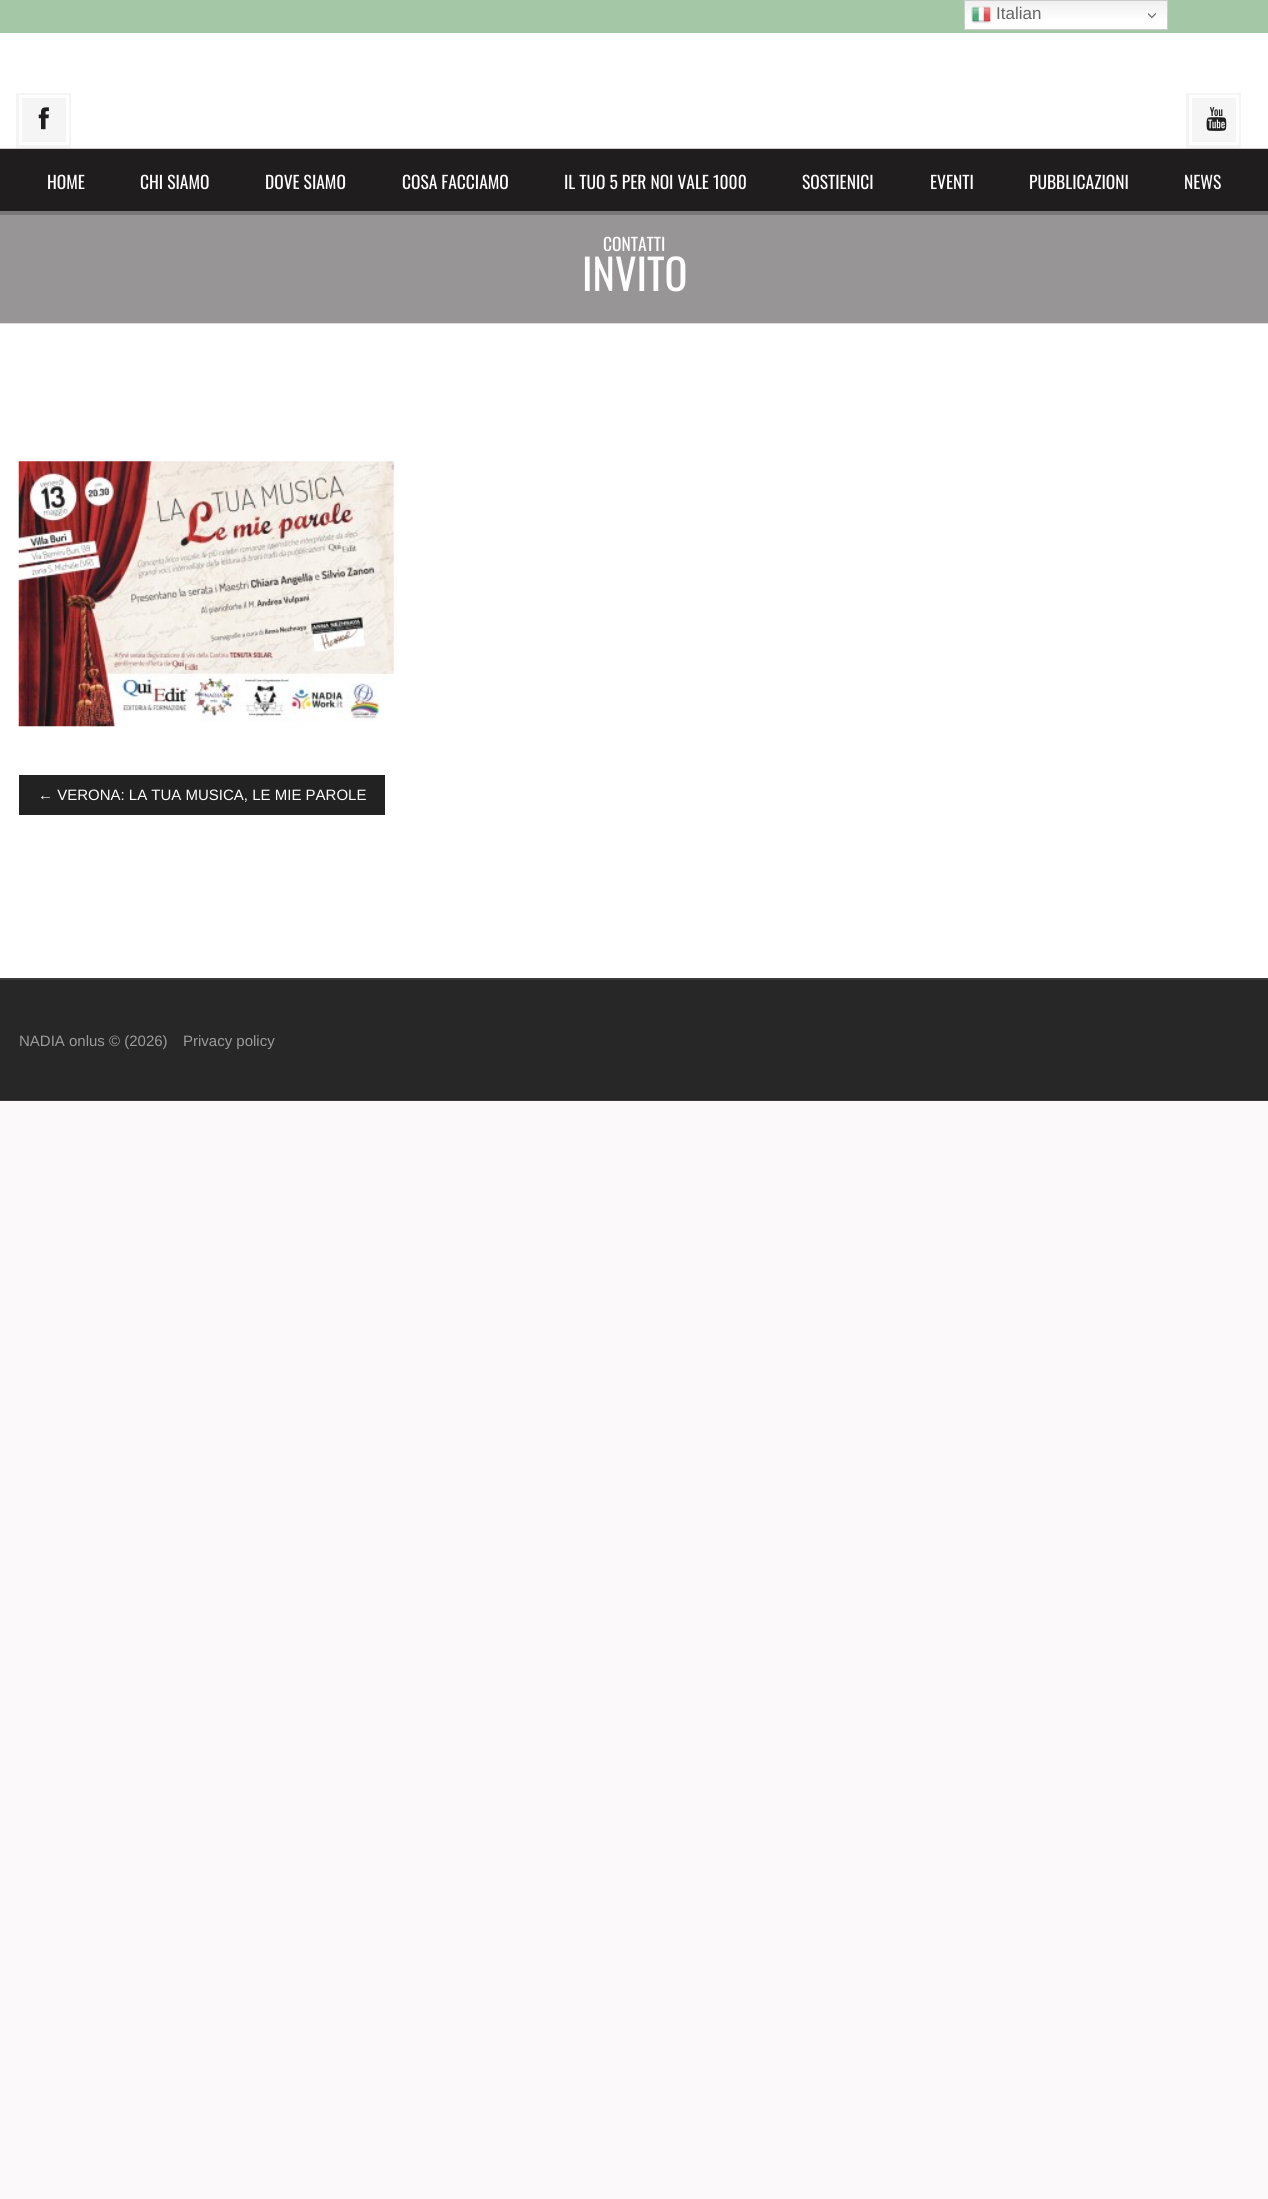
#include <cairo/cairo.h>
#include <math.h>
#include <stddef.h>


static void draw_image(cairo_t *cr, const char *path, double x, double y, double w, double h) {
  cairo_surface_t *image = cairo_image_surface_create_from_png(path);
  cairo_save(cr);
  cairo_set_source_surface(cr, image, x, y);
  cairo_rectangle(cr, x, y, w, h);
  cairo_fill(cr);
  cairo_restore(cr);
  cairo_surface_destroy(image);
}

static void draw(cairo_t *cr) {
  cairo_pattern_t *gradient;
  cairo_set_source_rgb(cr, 251 / 255.0, 249 / 255.0, 250 / 255.0);
  cairo_paint(cr);
  cairo_set_source_rgb(cr, 164 / 255.0, 199 / 255.0, 166 / 255.0);
  cairo_rectangle(cr, 0, 0, 1268, 33);
  cairo_fill(cr);
  gradient = cairo_pattern_create_linear(1066, 0, 1066, 30);
  cairo_pattern_add_color_stop_rgba(gradient, 0, 239 / 255.0, 239 / 255.0, 239 / 255.0, 1);
  cairo_pattern_add_color_stop_rgba(gradient, 0.7, 1, 1, 1, 1);
  cairo_set_source(cr, gradient);
  cairo_pattern_destroy(gradient);
  cairo_rectangle(cr, 965, 1, 202, 28);
  cairo_fill(cr);
  cairo_rectangle(cr, 964.5, 0.5, 203, 29);
  cairo_set_source_rgb(cr, 204 / 255.0, 204 / 255.0, 204 / 255.0);
  cairo_set_line_width(cr, 1);
  cairo_stroke(cr);
  draw_image(cr, "images/1.png", 971, 6, 21, 18);
  draw_image(cr, "images/2.png", 1148, 13, 8, 6);
  cairo_set_source_rgb(cr, 1, 1, 1);
  cairo_rectangle(cr, 0, 33, 1268, 116);
  cairo_fill(cr);
  cairo_rectangle(cr, 17.5, 94.5, 52, 52);
  cairo_set_source_rgb(cr, 245 / 255.0, 245 / 255.0, 245 / 255.0);
  cairo_set_line_width(cr, 3);
  cairo_stroke(cr);
  cairo_rectangle(cr, 20.5, 96.5, 47, 47);
  cairo_fill_preserve(cr);
  cairo_set_source_rgb(cr, 1, 1, 1);
  cairo_stroke(cr);
  draw_image(cr, "images/3.png", 38, 107, 11, 23);
  cairo_rectangle(cr, 1187.5, 94.5, 52, 52);
  cairo_set_source_rgb(cr, 245 / 255.0, 245 / 255.0, 245 / 255.0);
  cairo_stroke(cr);
  cairo_rectangle(cr, 1190.5, 96.5, 47, 47);
  cairo_fill_preserve(cr);
  cairo_set_source_rgb(cr, 1, 1, 1);
  cairo_stroke(cr);
  draw_image(cr, "images/4.png", 1206, 107, 21, 24);
  cairo_set_source_rgb(cr, 151 / 255.0, 149 / 255.0, 150 / 255.0);
  cairo_rectangle(cr, 0, 211, 1268, 112);
  cairo_fill(cr);
  cairo_set_source_rgba(cr, 0, 0, 0, 0.2);
  cairo_set_fill_rule(cr, CAIRO_FILL_RULE_EVEN_ODD);
  cairo_new_path(cr);
  cairo_move_to(cr, -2, 148);
  cairo_line_to(cr, -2, 215);
  cairo_line_to(cr, 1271, 215);
  cairo_line_to(cr, 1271, 148);
  cairo_close_path(cr);
  cairo_move_to(cr, 0, 149);
  cairo_line_to(cr, 0, 211);
  cairo_line_to(cr, 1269, 211);
  cairo_line_to(cr, 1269, 149);
  cairo_close_path(cr);
  cairo_fill(cr);
  cairo_set_source_rgb(cr, 31 / 255.0, 29 / 255.0, 29 / 255.0);
  cairo_rectangle(cr, 0, 149, 1268, 62);
  cairo_fill(cr);
  cairo_set_source_rgb(cr, 221 / 255.0, 221 / 255.0, 221 / 255.0);
  cairo_rectangle(cr, 0, 323, 1268, 1);
  cairo_fill(cr);
  cairo_set_source_rgb(cr, 1, 1, 1);
  cairo_rectangle(cr, 0, 324, 1268, 654);
  cairo_fill(cr);
  draw_image(cr, "images/5.png", 18, 461, 376, 266);
  cairo_set_source_rgb(cr, 34 / 255.0, 34 / 255.0, 34 / 255.0);
  cairo_rectangle(cr, 19, 775, 366, 40);
  cairo_fill(cr);
  cairo_set_source_rgb(cr, 59 / 255.0, 59 / 255.0, 59 / 255.0);
  cairo_rectangle(cr, 0, 978, 1268, 2);
  cairo_fill(cr);
  cairo_rectangle(cr, 0, 1100, 1268, 1);
  cairo_fill(cr);
  cairo_set_source_rgb(cr, 39 / 255.0, 39 / 255.0, 39 / 255.0);
  cairo_rectangle(cr, 0, 980, 1268, 120);
  cairo_fill(cr);
  cairo_select_font_face(cr, "Liberation Sans", CAIRO_FONT_SLANT_NORMAL, CAIRO_FONT_WEIGHT_NORMAL);
  cairo_set_font_size(cr, 17);
  cairo_set_source_rgb(cr, 102 / 255.0, 102 / 255.0, 102 / 255.0);
  cairo_move_to(cr, 996, 19);
  cairo_show_text(cr, "Italian");
  cairo_select_font_face(cr, "Oswald", CAIRO_FONT_SLANT_NORMAL, CAIRO_FONT_WEIGHT_NORMAL);
  cairo_set_font_size(cr, 17.5);
  cairo_set_source_rgb(cr, 1, 1, 1);
  cairo_move_to(cr, 47, 189);
  cairo_show_text(cr, "HOME");
  cairo_move_to(cr, 140, 189);
  cairo_show_text(cr, "CHI SIAMO");
  cairo_move_to(cr, 265, 189);
  cairo_show_text(cr, "DOVE SIAMO");
  cairo_move_to(cr, 402, 189);
  cairo_show_text(cr, "COSA FACCIAMO");
  cairo_move_to(cr, 564, 189);
  cairo_show_text(cr, "IL TUO 5 PER NOI VALE 1000");
  cairo_move_to(cr, 802, 189);
  cairo_show_text(cr, "SOSTIENICI");
  cairo_move_to(cr, 930, 189);
  cairo_show_text(cr, "EVENTI");
  cairo_move_to(cr, 1029, 189);
  cairo_show_text(cr, "PUBBLICAZIONI");
  cairo_move_to(cr, 1184, 189);
  cairo_show_text(cr, "NEWS");
  cairo_move_to(cr, 603, 251);
  cairo_show_text(cr, "CONTATTI");
  cairo_set_font_size(cr, 42.5);
  cairo_move_to(cr, 582, 291);
  cairo_show_text(cr, "INVITO");
  cairo_select_font_face(cr, "Liberation Sans", CAIRO_FONT_SLANT_NORMAL, CAIRO_FONT_WEIGHT_NORMAL);
  cairo_set_font_size(cr, 15);
  cairo_move_to(cr, 38, 800);
  cairo_show_text(cr, "← VERONA: LA TUA MUSICA, LE MIE PAROLE");
  cairo_set_source_rgb(cr, 155 / 255.0, 155 / 255.0, 155 / 255.0);
  cairo_move_to(cr, 19, 1046);
  cairo_show_text(cr, "NADIA onlus © (2026)");
  cairo_move_to(cr, 183, 1046);
  cairo_show_text(cr, "Privacy policy");
}

int main(void) {
  cairo_surface_t *surface = cairo_image_surface_create(CAIRO_FORMAT_RGB24, 1268, 2199);
  cairo_t *cr = cairo_create(surface);
  cairo_font_options_t *options = cairo_font_options_create();
  cairo_font_options_set_hint_metrics(options, CAIRO_HINT_METRICS_OFF);
  cairo_font_options_set_hint_style(options, CAIRO_HINT_STYLE_NONE);
  cairo_set_font_options(cr, options);
  cairo_set_miter_limit(cr, 4);
  draw(cr);
  cairo_surface_write_to_png(surface, "out.png");
  cairo_font_options_destroy(options);
  cairo_destroy(cr);
  cairo_surface_destroy(surface);
  return 0;
}
